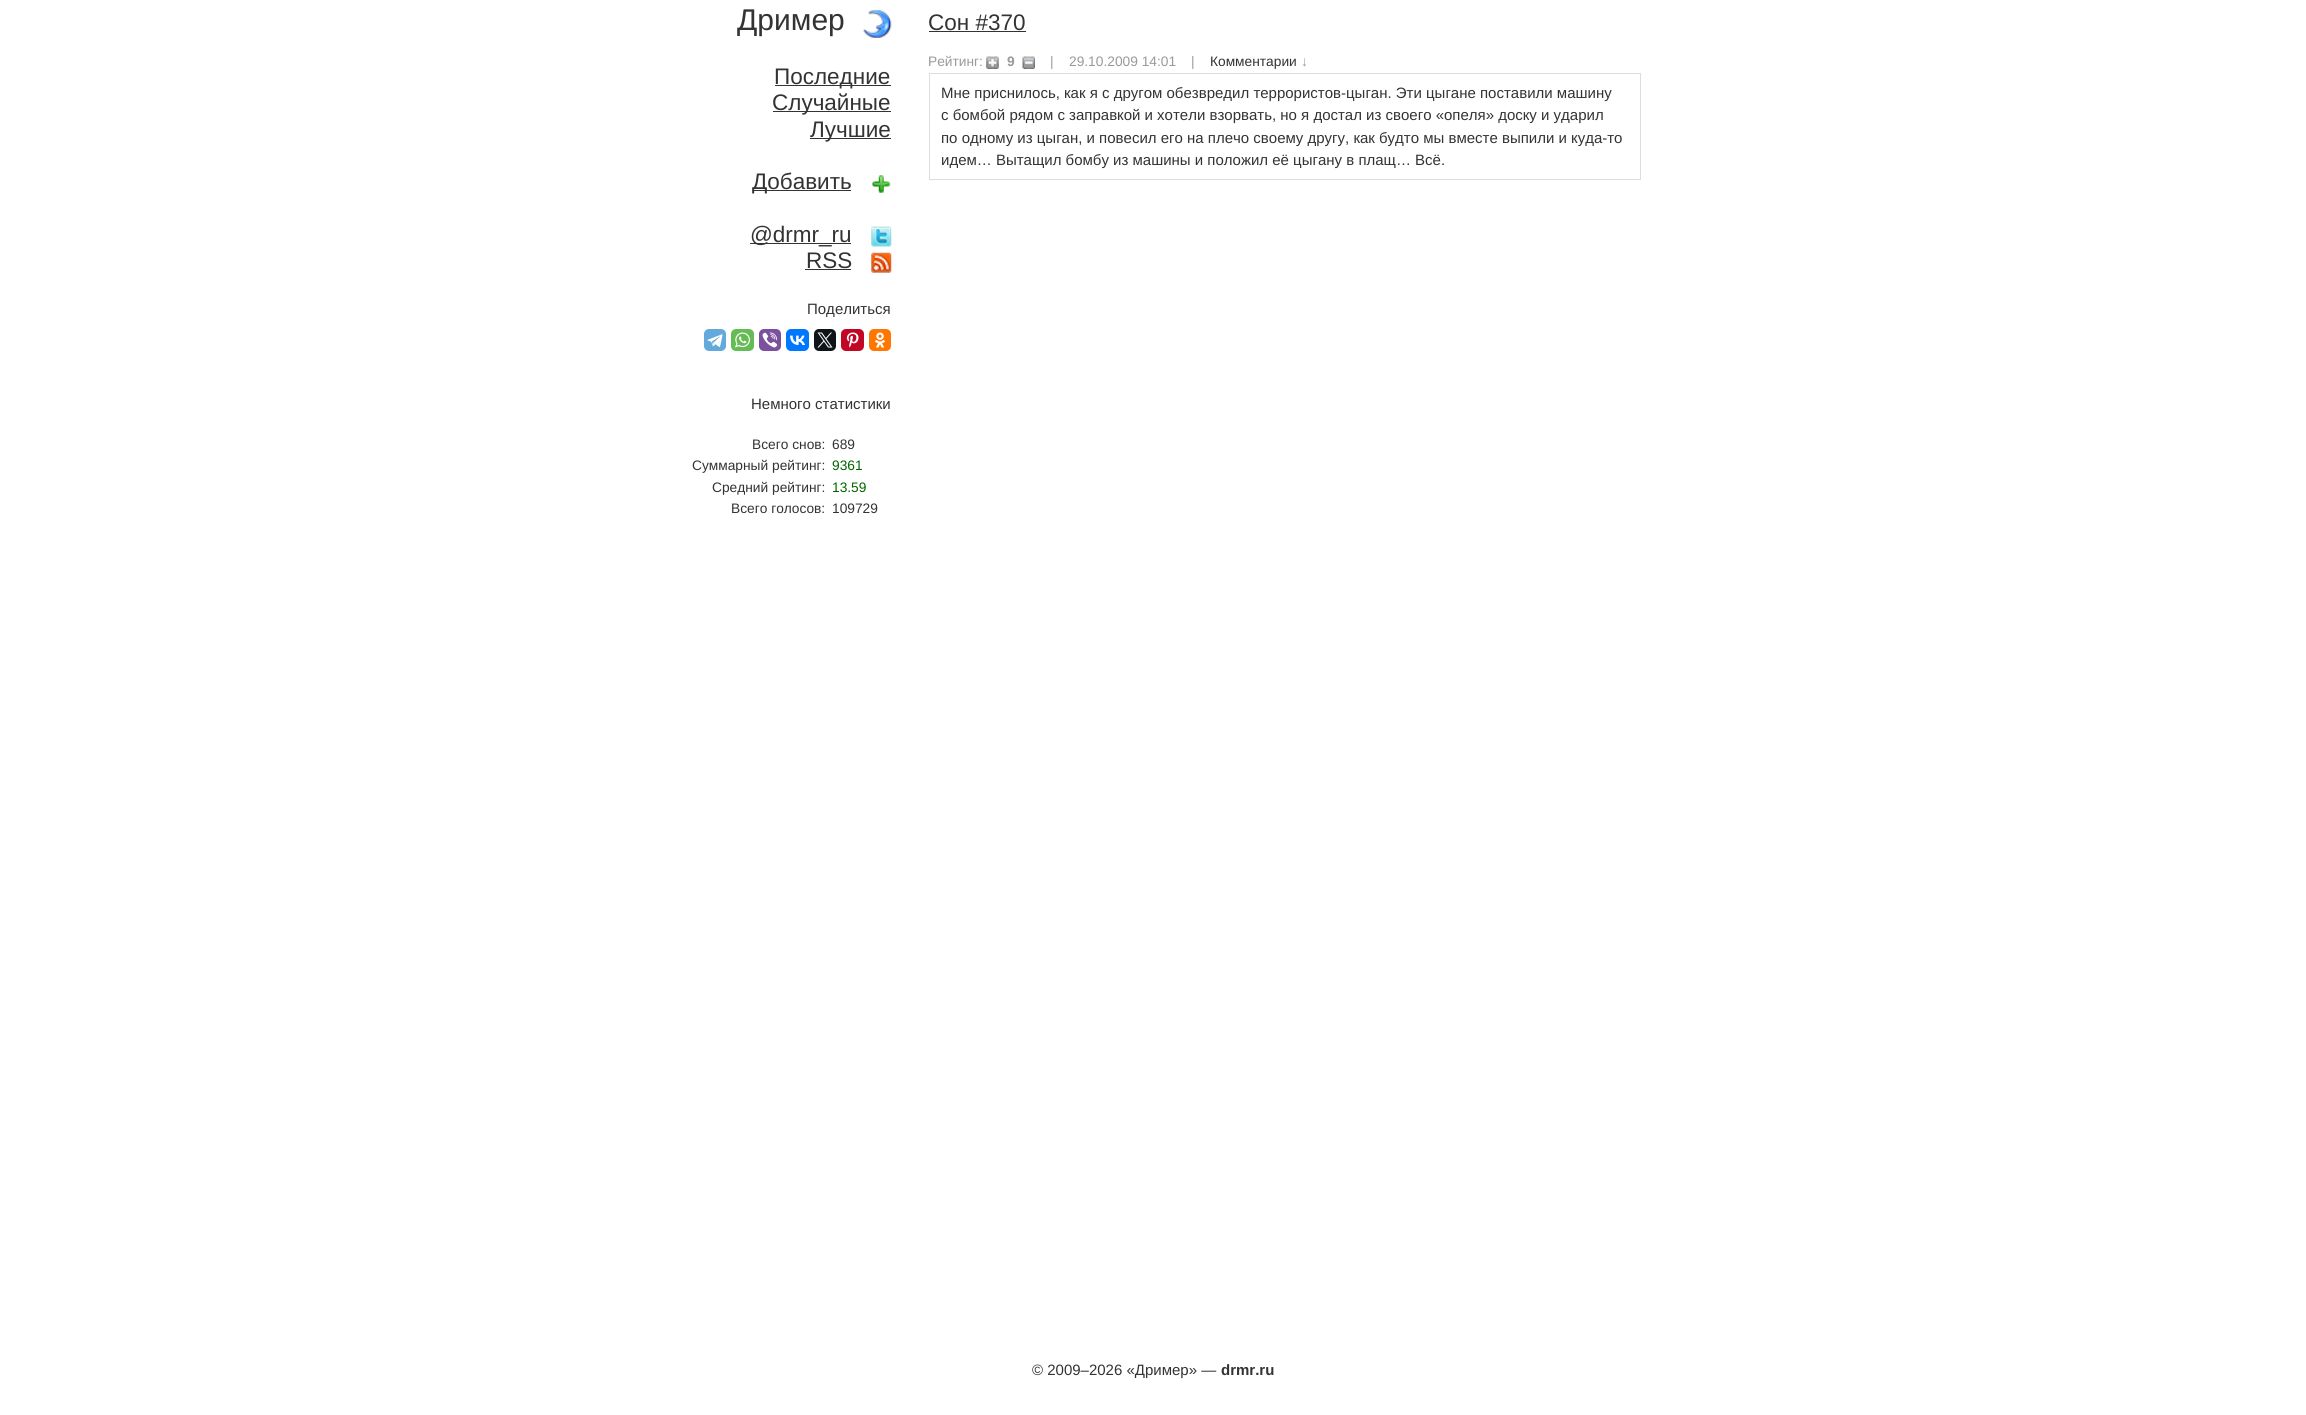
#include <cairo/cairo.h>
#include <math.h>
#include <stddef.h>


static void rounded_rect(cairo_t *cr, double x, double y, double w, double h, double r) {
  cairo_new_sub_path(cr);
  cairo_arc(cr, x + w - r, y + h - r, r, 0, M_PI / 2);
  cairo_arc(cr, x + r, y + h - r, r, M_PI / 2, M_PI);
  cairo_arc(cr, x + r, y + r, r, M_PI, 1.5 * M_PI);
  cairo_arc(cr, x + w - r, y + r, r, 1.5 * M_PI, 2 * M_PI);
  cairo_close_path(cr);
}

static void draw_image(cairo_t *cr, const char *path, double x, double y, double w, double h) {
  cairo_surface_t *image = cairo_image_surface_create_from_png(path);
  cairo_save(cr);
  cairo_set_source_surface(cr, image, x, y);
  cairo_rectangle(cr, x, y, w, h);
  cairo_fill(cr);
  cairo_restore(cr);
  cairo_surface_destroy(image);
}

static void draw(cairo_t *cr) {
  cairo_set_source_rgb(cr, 1, 1, 1);
  cairo_paint(cr);
  draw_image(cr, "images/1.png", 863, 10, 29, 28);
  cairo_set_source_rgb(cr, 51 / 255.0, 51 / 255.0, 51 / 255.0);
  cairo_rectangle(cr, 775, 85, 116, 1);
  cairo_fill(cr);
  cairo_rectangle(cr, 773, 111, 118, 1);
  cairo_fill(cr);
  cairo_rectangle(cr, 810, 138, 81, 1);
  cairo_fill(cr);
  cairo_rectangle(cr, 753, 190, 98, 1);
  cairo_fill(cr);
  draw_image(cr, "images/2.png", 872, 175, 19, 18);
  cairo_rectangle(cr, 750, 243, 101, 1);
  cairo_fill(cr);
  draw_image(cr, "images/3.png", 871, 226, 21, 21);
  cairo_rectangle(cr, 805, 269, 46, 1);
  cairo_fill(cr);
  draw_image(cr, "images/4.png", 871, 252, 21, 21);
  cairo_set_source_rgb(cr, 100 / 255.0, 169 / 255.0, 220 / 255.0);
  rounded_rect(cr, 704, 329, 22, 22, 5);
  cairo_fill(cr);
  draw_image(cr, "images/5.png", 707, 334, 16, 13);
  cairo_set_source_rgb(cr, 101 / 255.0, 188 / 255.0, 84 / 255.0);
  rounded_rect(cr, 731, 329, 23, 22, 5);
  cairo_fill(cr);
  draw_image(cr, "images/6.png", 735, 332, 15, 16);
  cairo_set_source_rgb(cr, 123 / 255.0, 81 / 255.0, 157 / 255.0);
  rounded_rect(cr, 759, 329, 22, 22, 5);
  cairo_fill(cr);
  draw_image(cr, "images/7.png", 762, 332, 16, 16);
  cairo_set_source_rgb(cr, 0, 119 / 255.0, 1);
  rounded_rect(cr, 786, 329, 23, 22, 5);
  cairo_fill(cr);
  draw_image(cr, "images/8.png", 790, 335, 15, 10);
  cairo_set_source_rgb(cr, 15 / 255.0, 20 / 255.0, 25 / 255.0);
  rounded_rect(cr, 814, 329, 22, 22, 5);
  cairo_fill(cr);
  draw_image(cr, "images/9.png", 817, 332, 16, 16);
  cairo_set_source_rgb(cr, 194 / 255.0, 7 / 255.0, 36 / 255.0);
  rounded_rect(cr, 841, 329, 23, 22, 5);
  cairo_fill(cr);
  draw_image(cr, "images/10.png", 846, 332, 13, 16);
  cairo_set_source_rgb(cr, 1, 119 / 255.0, 0);
  rounded_rect(cr, 869, 329, 22, 22, 5);
  cairo_fill(cr);
  draw_image(cr, "images/11.png", 875, 332, 10, 16);
  cairo_set_source_rgb(cr, 51 / 255.0, 51 / 255.0, 51 / 255.0);
  cairo_rectangle(cr, 929, 31, 97, 1);
  cairo_fill(cr);
  draw_image(cr, "images/12.png", 986, 56, 13, 13);
  draw_image(cr, "images/13.png", 1022, 56, 13, 13);
  cairo_rectangle(cr, 929.5, 73.5, 711, 106);
  cairo_set_source_rgb(cr, 221 / 255.0, 221 / 255.0, 221 / 255.0);
  cairo_set_line_width(cr, 1);
  cairo_stroke(cr);
  cairo_select_font_face(cr, "Liberation Sans", CAIRO_FONT_SLANT_NORMAL, CAIRO_FONT_WEIGHT_NORMAL);
  cairo_set_font_size(cr, 30);
  cairo_set_source_rgb(cr, 51 / 255.0, 51 / 255.0, 51 / 255.0);
  cairo_move_to(cr, 737, 30);
  cairo_show_text(cr, "Дример");
  cairo_set_font_size(cr, 22.5);
  cairo_move_to(cr, 774, 84);
  cairo_show_text(cr, "Последние");
  cairo_move_to(cr, 772, 110);
  cairo_show_text(cr, "Случайные");
  cairo_move_to(cr, 810, 137);
  cairo_show_text(cr, "Лучшие");
  cairo_move_to(cr, 752, 189);
  cairo_show_text(cr, "Добавить");
  cairo_move_to(cr, 750, 242);
  cairo_show_text(cr, "@drmr_ru");
  cairo_move_to(cr, 806, 268);
  cairo_show_text(cr, "RSS");
  cairo_set_font_size(cr, 15);
  cairo_move_to(cr, 807, 314);
  cairo_show_text(cr, "Поделиться");
  cairo_move_to(cr, 751, 409);
  cairo_show_text(cr, "Немного статистики");
  cairo_set_font_size(cr, 13.75);
  cairo_move_to(cr, 752, 449);
  cairo_show_text(cr, "Всего снов:");
  cairo_move_to(cr, 832, 449);
  cairo_show_text(cr, "689");
  cairo_move_to(cr, 692, 470);
  cairo_show_text(cr, "Суммарный рейтинг:");
  cairo_set_source_rgb(cr, 0, 102 / 255.0, 0);
  cairo_move_to(cr, 832, 470);
  cairo_show_text(cr, "9361");
  cairo_set_source_rgb(cr, 51 / 255.0, 51 / 255.0, 51 / 255.0);
  cairo_move_to(cr, 712, 492);
  cairo_show_text(cr, "Средний рейтинг:");
  cairo_set_source_rgb(cr, 0, 102 / 255.0, 0);
  cairo_move_to(cr, 832, 492);
  cairo_show_text(cr, "13.59");
  cairo_set_source_rgb(cr, 51 / 255.0, 51 / 255.0, 51 / 255.0);
  cairo_move_to(cr, 731, 513);
  cairo_show_text(cr, "Всего голосов:");
  cairo_move_to(cr, 832, 513);
  cairo_show_text(cr, "109729");
  cairo_set_font_size(cr, 22.5);
  cairo_move_to(cr, 928, 30);
  cairo_show_text(cr, "Сон #370");
  cairo_set_font_size(cr, 13.75);
  cairo_set_source_rgb(cr, 153 / 255.0, 153 / 255.0, 153 / 255.0);
  cairo_move_to(cr, 928, 66);
  cairo_show_text(cr, "Рейтинг:");
  cairo_select_font_face(cr, "Liberation Sans", CAIRO_FONT_SLANT_NORMAL, CAIRO_FONT_WEIGHT_BOLD);
  cairo_move_to(cr, 1007, 66);
  cairo_show_text(cr, "9");
  cairo_select_font_face(cr, "Liberation Sans", CAIRO_FONT_SLANT_NORMAL, CAIRO_FONT_WEIGHT_NORMAL);
  cairo_move_to(cr, 1050, 66);
  cairo_show_text(cr, "|");
  cairo_move_to(cr, 1069, 66);
  cairo_show_text(cr, "29.10.2009 14:01");
  cairo_move_to(cr, 1191, 66);
  cairo_show_text(cr, "|");
  cairo_set_source_rgb(cr, 51 / 255.0, 51 / 255.0, 51 / 255.0);
  cairo_move_to(cr, 1210, 66);
  cairo_show_text(cr, "Комментарии");
  cairo_set_source_rgb(cr, 153 / 255.0, 153 / 255.0, 153 / 255.0);
  cairo_move_to(cr, 1301, 66);
  cairo_show_text(cr, "↓");
  cairo_set_font_size(cr, 15);
  cairo_set_source_rgb(cr, 51 / 255.0, 51 / 255.0, 51 / 255.0);
  cairo_move_to(cr, 941, 98);
  cairo_show_text(cr, "Мне приснилось, как я с другом обезвредил террористов-цыган. Эти цыгане поставили машину");
  cairo_move_to(cr, 941, 120);
  cairo_show_text(cr, "с бомбой рядом с заправкой и хотели взорвать, но я достал из своего «опеля» доску и ударил");
  cairo_move_to(cr, 941, 143);
  cairo_show_text(cr, "по одному из цыган, и повесил его на плечо своему другу, как будто мы вместе выпили и куда-то");
  cairo_move_to(cr, 941, 165);
  cairo_show_text(cr, "идем… Вытащил бомбу из машины и положил её цыгану в плащ… Всё.");
  cairo_move_to(cr, 1032, 1375);
  cairo_show_text(cr, "© 2009–2026 «Дример» —");
  cairo_select_font_face(cr, "Liberation Sans", CAIRO_FONT_SLANT_NORMAL, CAIRO_FONT_WEIGHT_BOLD);
  cairo_move_to(cr, 1221, 1375);
  cairo_show_text(cr, "drmr.ru");
}

int main(void) {
  cairo_surface_t *surface = cairo_image_surface_create(CAIRO_FORMAT_RGB24, 2306, 1415);
  cairo_t *cr = cairo_create(surface);
  cairo_font_options_t *options = cairo_font_options_create();
  cairo_font_options_set_hint_metrics(options, CAIRO_HINT_METRICS_OFF);
  cairo_font_options_set_hint_style(options, CAIRO_HINT_STYLE_NONE);
  cairo_set_font_options(cr, options);
  cairo_set_miter_limit(cr, 4);
  draw(cr);
  cairo_surface_write_to_png(surface, "out.png");
  cairo_font_options_destroy(options);
  cairo_destroy(cr);
  cairo_surface_destroy(surface);
  return 0;
}
